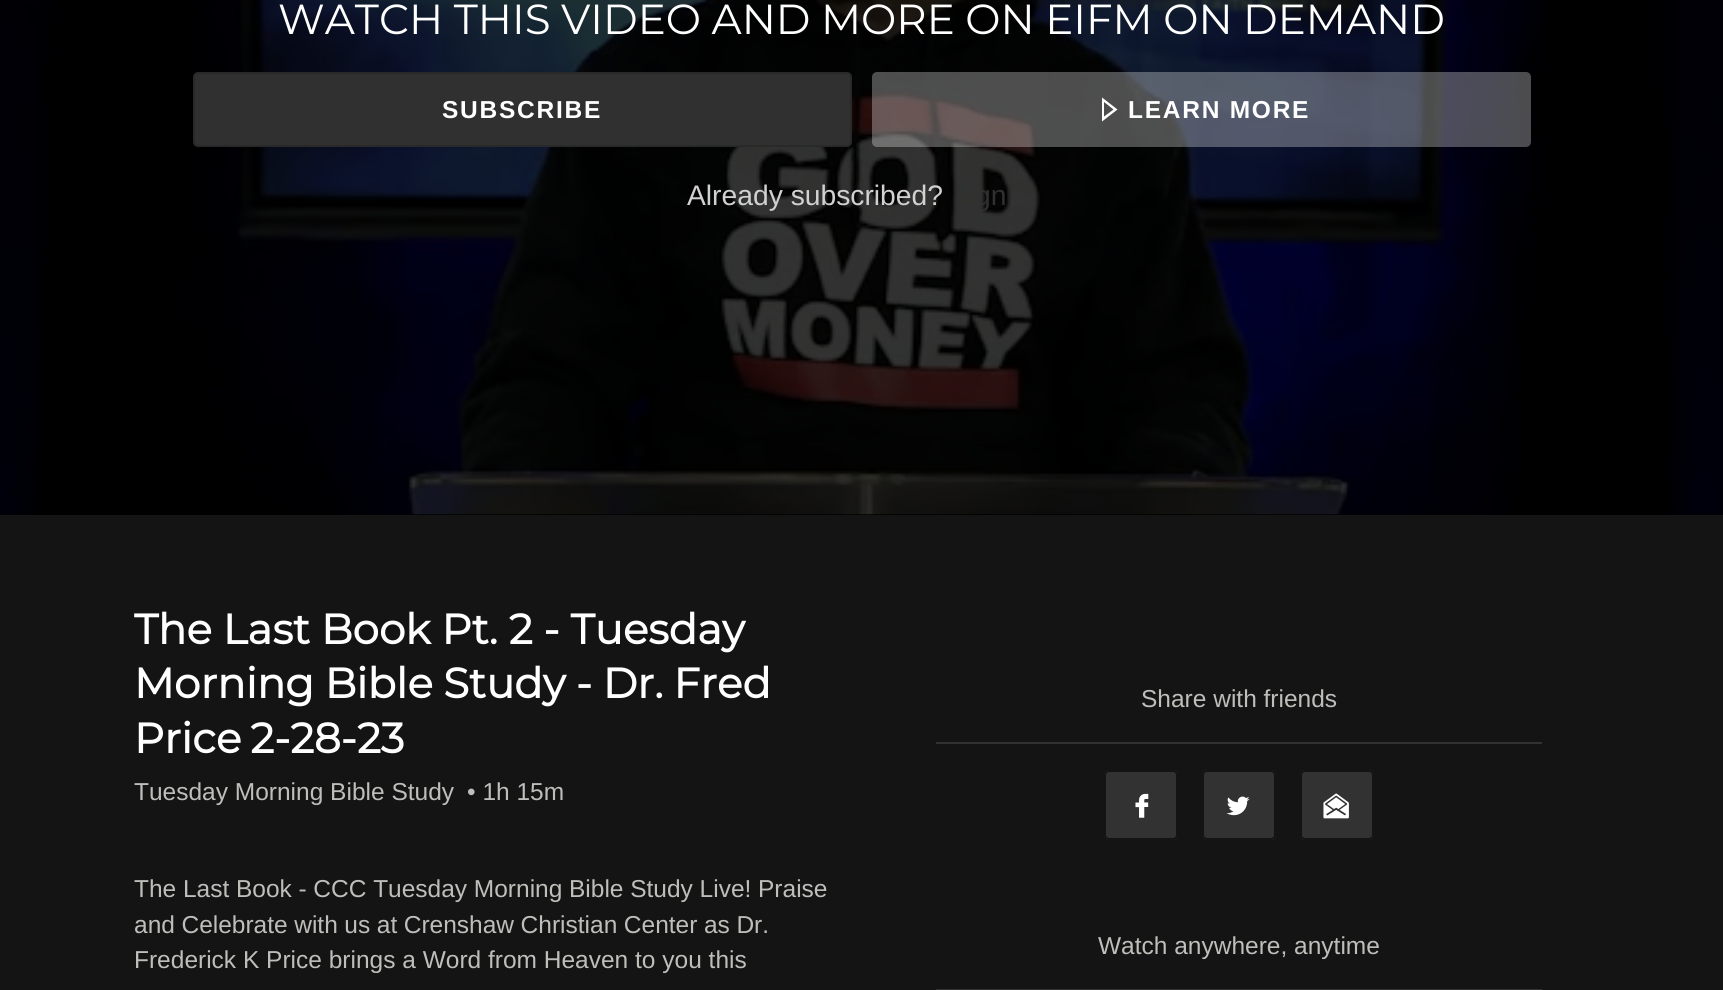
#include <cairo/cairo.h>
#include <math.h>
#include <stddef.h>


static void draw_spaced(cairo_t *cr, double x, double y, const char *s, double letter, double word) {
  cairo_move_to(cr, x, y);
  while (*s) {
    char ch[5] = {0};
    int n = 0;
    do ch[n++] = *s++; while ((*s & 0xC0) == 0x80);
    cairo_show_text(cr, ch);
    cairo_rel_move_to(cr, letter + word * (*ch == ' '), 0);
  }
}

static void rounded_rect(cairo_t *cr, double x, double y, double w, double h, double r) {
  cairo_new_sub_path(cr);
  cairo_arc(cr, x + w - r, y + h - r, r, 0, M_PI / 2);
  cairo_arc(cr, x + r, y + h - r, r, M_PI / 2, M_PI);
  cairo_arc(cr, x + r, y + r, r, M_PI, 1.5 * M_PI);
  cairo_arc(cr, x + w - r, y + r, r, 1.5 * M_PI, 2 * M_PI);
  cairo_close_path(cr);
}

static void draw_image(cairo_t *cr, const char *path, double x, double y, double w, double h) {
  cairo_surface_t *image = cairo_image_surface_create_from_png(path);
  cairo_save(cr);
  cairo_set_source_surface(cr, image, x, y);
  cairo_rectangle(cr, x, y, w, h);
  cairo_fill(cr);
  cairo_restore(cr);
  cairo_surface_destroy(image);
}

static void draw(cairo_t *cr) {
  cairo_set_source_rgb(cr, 20 / 255.0, 20 / 255.0, 20 / 255.0);
  cairo_paint(cr);
  cairo_set_source_rgb(cr, 0, 0, 0);
  cairo_rectangle(cr, 0, 514, 1723, 1);
  cairo_fill(cr);
  draw_image(cr, "images/1.png", 0, 0, 1723, 515);
  cairo_set_source_rgb(cr, 48 / 255.0, 48 / 255.0, 48 / 255.0);
  rounded_rect(cr, 194, 73, 657, 73, 4);
  cairo_fill_preserve(cr);
  cairo_set_source_rgb(cr, 41 / 255.0, 41 / 255.0, 41 / 255.0);
  cairo_stroke(cr);
  cairo_set_source_rgba(cr, 1, 1, 1, 0.3);
  rounded_rect(cr, 872, 72, 659, 75, 5);
  cairo_fill(cr);
  cairo_set_source_rgb(cr, 1, 1, 1);
  cairo_new_path(cr);
  cairo_move_to(cr, 1102, 121.5);
  cairo_line_to(cr, 1102, 97.5);
  cairo_line_to(cr, 1117.5, 109.5);
  cairo_close_path(cr);
  cairo_move_to(cr, 1104, 102);
  cairo_line_to(cr, 1104, 116.5);
  cairo_line_to(cr, 1113.5, 109.5);
  cairo_close_path(cr);
  cairo_fill(cr);
  cairo_set_source_rgb(cr, 50 / 255.0, 50 / 255.0, 50 / 255.0);
  cairo_rectangle(cr, 936, 742, 606, 2);
  cairo_fill(cr);
  rounded_rect(cr, 1104, 770, 74, 70, 5);
  cairo_fill(cr);
  draw_image(cr, "images/2.png", 1135, 793, 14, 25);
  rounded_rect(cr, 1105, 771, 72, 68, 4);
  cairo_set_source_rgb(cr, 20 / 255.0, 20 / 255.0, 20 / 255.0);
  cairo_stroke(cr);
  cairo_set_source_rgb(cr, 50 / 255.0, 50 / 255.0, 50 / 255.0);
  rounded_rect(cr, 1202, 770, 74, 70, 5);
  cairo_fill(cr);
  draw_image(cr, "images/3.png", 1226, 796, 24, 20);
  rounded_rect(cr, 1203, 771, 72, 68, 4);
  cairo_set_source_rgb(cr, 20 / 255.0, 20 / 255.0, 20 / 255.0);
  cairo_stroke(cr);
  cairo_set_source_rgb(cr, 50 / 255.0, 50 / 255.0, 50 / 255.0);
  rounded_rect(cr, 1300, 770, 74, 70, 5);
  cairo_fill(cr);
  draw_image(cr, "images/4.png", 1323, 793, 26, 26);
  rounded_rect(cr, 1301, 771, 72, 68, 4);
  cairo_set_source_rgb(cr, 20 / 255.0, 20 / 255.0, 20 / 255.0);
  cairo_stroke(cr);
  cairo_set_source_rgb(cr, 50 / 255.0, 50 / 255.0, 50 / 255.0);
  cairo_rectangle(cr, 936, 989, 606, 1);
  cairo_fill(cr);
  cairo_select_font_face(cr, "Montserrat", CAIRO_FONT_SLANT_NORMAL, CAIRO_FONT_WEIGHT_NORMAL);
  cairo_set_font_size(cr, 42);
  cairo_set_source_rgb(cr, 1, 1, 1);
  draw_spaced(cr, 278, 34, "WATCH THIS VIDEO AND MORE ON EIFM ON DEMAND", 0, -0.5);
  cairo_select_font_face(cr, "Liberation Sans", CAIRO_FONT_SLANT_NORMAL, CAIRO_FONT_WEIGHT_BOLD);
  cairo_set_font_size(cr, 24.5);
  draw_spaced(cr, 442, 118, "SUBSCRIBE", 1.75, 0);
  draw_spaced(cr, 1128, 118, "LEARN MORE", 1.75, 0);
  cairo_select_font_face(cr, "Liberation Sans", CAIRO_FONT_SLANT_NORMAL, CAIRO_FONT_WEIGHT_NORMAL);
  cairo_set_font_size(cr, 28.25);
  cairo_set_source_rgb(cr, 209 / 255.0, 209 / 255.0, 209 / 255.0);
  cairo_move_to(cr, 687, 205);
  cairo_show_text(cr, "Already subscribed?");
  cairo_set_source_rgb(cr, 48 / 255.0, 48 / 255.0, 48 / 255.0);
  cairo_move_to(cr, 975, 205);
  cairo_show_text(cr, "gn");
  cairo_select_font_face(cr, "Montserrat", CAIRO_FONT_SLANT_NORMAL, CAIRO_FONT_WEIGHT_BOLD);
  cairo_set_font_size(cr, 42);
  cairo_set_source_rgb(cr, 1, 1, 1);
  cairo_move_to(cr, 134, 644);
  cairo_show_text(cr, "The Last Book Pt. 2 - Tuesday");
  draw_spaced(cr, 134, 698, "Morning Bible Study - Dr. Fred", 0, -0.5);
  draw_spaced(cr, 134, 753, "Price 2-28-23", 0, -2);
  cairo_select_font_face(cr, "Liberation Sans", CAIRO_FONT_SLANT_NORMAL, CAIRO_FONT_WEIGHT_NORMAL);
  cairo_set_font_size(cr, 24.5);
  cairo_set_source_rgb(cr, 190 / 255.0, 190 / 255.0, 187 / 255.0);
  cairo_move_to(cr, 134, 800);
  cairo_show_text(cr, "Tuesday Morning Bible Study");
  cairo_move_to(cr, 467, 800);
  cairo_show_text(cr, "• 1h 15m");
  draw_spaced(cr, 134, 897, "The Last Book - CCC Tuesday Morning Bible Study Live! Praise", 0, -0.1);
  draw_spaced(cr, 134, 933, "and Celebrate with us at Crenshaw Christian Center as Dr.", 0, -0.25);
  cairo_move_to(cr, 134, 968);
  cairo_show_text(cr, "Frederick K Price brings a Word from Heaven to you this");
  cairo_move_to(cr, 1141, 707);
  cairo_show_text(cr, "Share with friends");
  cairo_move_to(cr, 1098, 954);
  cairo_show_text(cr, "Watch anywhere, anytime");
}

int main(void) {
  cairo_surface_t *surface = cairo_image_surface_create(CAIRO_FORMAT_RGB24, 1723, 990);
  cairo_t *cr = cairo_create(surface);
  cairo_font_options_t *options = cairo_font_options_create();
  cairo_font_options_set_hint_metrics(options, CAIRO_HINT_METRICS_OFF);
  cairo_font_options_set_hint_style(options, CAIRO_HINT_STYLE_NONE);
  cairo_set_font_options(cr, options);
  cairo_set_miter_limit(cr, 4);
  draw(cr);
  cairo_surface_write_to_png(surface, "out.png");
  cairo_font_options_destroy(options);
  cairo_destroy(cr);
  cairo_surface_destroy(surface);
  return 0;
}
